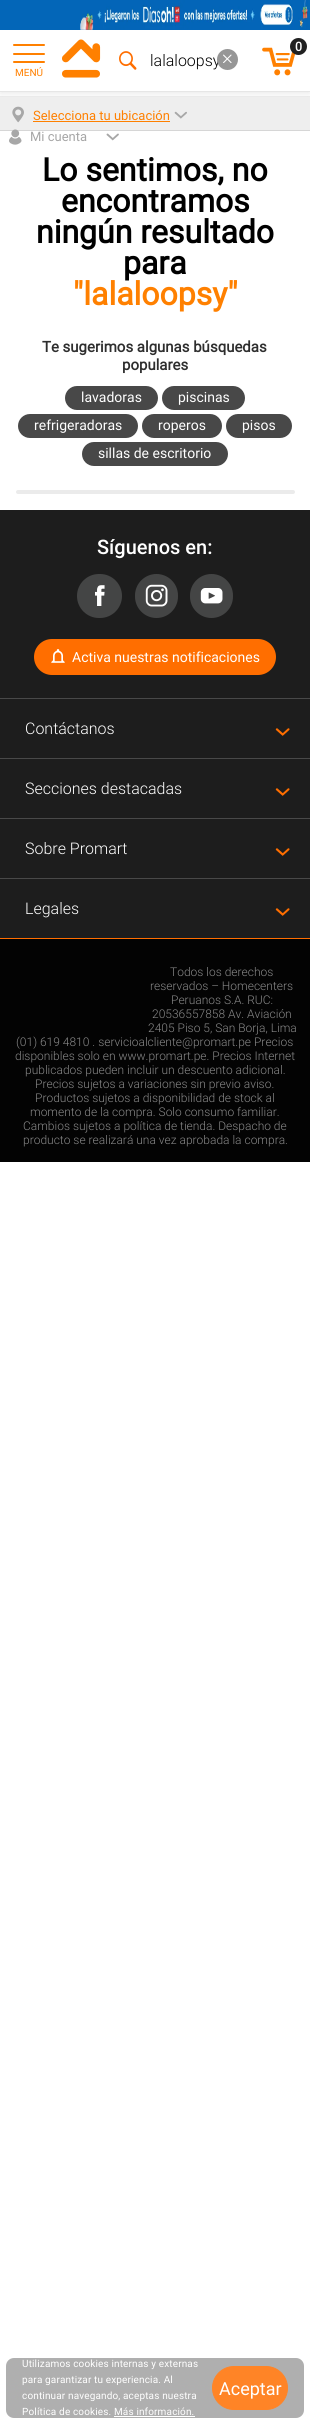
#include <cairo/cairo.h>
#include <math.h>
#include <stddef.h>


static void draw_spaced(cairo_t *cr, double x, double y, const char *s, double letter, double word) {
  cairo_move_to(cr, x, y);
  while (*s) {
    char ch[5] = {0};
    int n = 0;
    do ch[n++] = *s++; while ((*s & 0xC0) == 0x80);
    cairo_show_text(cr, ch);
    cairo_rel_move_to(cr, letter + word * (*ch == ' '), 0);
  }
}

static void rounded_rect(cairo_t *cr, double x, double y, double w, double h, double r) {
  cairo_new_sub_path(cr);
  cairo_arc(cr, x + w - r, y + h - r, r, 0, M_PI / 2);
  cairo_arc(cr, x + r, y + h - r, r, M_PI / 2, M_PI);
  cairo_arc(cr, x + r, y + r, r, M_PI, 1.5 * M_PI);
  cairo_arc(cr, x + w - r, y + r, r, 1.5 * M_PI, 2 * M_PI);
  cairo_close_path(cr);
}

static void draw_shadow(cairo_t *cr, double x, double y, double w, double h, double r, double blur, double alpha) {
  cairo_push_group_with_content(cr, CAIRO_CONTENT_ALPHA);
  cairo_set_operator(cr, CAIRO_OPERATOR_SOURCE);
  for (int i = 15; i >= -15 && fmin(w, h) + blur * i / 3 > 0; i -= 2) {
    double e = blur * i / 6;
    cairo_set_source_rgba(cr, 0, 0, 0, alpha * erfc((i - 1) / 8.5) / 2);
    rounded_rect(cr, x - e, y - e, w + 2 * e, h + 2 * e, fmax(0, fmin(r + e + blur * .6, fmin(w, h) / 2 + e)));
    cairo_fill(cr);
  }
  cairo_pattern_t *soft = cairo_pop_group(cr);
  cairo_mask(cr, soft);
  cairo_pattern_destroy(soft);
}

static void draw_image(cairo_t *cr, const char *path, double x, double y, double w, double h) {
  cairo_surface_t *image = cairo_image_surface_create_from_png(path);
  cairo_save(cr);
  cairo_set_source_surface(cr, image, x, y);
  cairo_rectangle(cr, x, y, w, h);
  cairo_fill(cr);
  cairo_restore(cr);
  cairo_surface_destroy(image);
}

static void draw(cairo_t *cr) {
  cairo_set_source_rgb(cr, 1, 1, 1);
  cairo_paint(cr);
  cairo_set_source_rgb(cr, 238 / 255.0, 238 / 255.0, 238 / 255.0);
  cairo_rectangle(cr, 0, 96, 310, 34);
  cairo_fill(cr);
  draw_image(cr, "images/6.png", 12, 106, 12, 17);
  cairo_save(cr);
  cairo_rectangle(cr, 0, 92, 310, 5);
  cairo_clip(cr);
  cairo_set_source_rgb(cr, 0, 0, 0);
  draw_shadow(cr, 0, 0, 310, 92, 0, 5, 0.12);
  cairo_restore(cr);
  cairo_set_source_rgb(cr, 230 / 255.0, 230 / 255.0, 230 / 255.0);
  cairo_rectangle(cr, 0, 91, 310, 1);
  cairo_fill(cr);
  cairo_set_source_rgb(cr, 3 / 255.0, 102 / 255.0, 184 / 255.0);
  cairo_rectangle(cr, 0, 0, 310, 30);
  cairo_fill(cr);
  draw_image(cr, "images/1.png", 80, 0, 228, 30);
  draw_image(cr, "images/2.png", 262, 47, 34, 29);
  cairo_set_source_rgb(cr, 33 / 255.0, 33 / 255.0, 33 / 255.0);
  cairo_arc(cr, 298.5, 46.5, 8.5, 0, 2 * M_PI);
  cairo_fill(cr);
  draw_image(cr, "images/3.png", 119, 51, 18, 19);
  cairo_set_source_rgb(cr, 1, 128 / 255.0, 0);
  rounded_rect(cr, 13, 44, 32, 2, 1);
  cairo_fill(cr);
  rounded_rect(cr, 13, 53, 32, 2, 1);
  cairo_fill(cr);
  rounded_rect(cr, 13, 61, 32, 2, 1);
  cairo_fill(cr);
  draw_image(cr, "images/5.png", 62, 39, 39, 39);
  cairo_set_source_rgb(cr, 214 / 255.0, 214 / 255.0, 214 / 255.0);
  cairo_rectangle(cr, 0, 130, 310, 1);
  cairo_fill(cr);
  cairo_set_source_rgb(cr, 1, 128 / 255.0, 0);
  cairo_rectangle(cr, 33, 121, 137, 1);
  cairo_fill(cr);
  draw_image(cr, "images/7.png", 174, 111, 13, 8);
  draw_image(cr, "images/8.png", 9, 129, 13, 16);
  draw_image(cr, "images/9.png", 106, 133, 13, 8);
  cairo_set_source_rgb(cr, 72 / 255.0, 72 / 255.0, 72 / 255.0);
  rounded_rect(cr, 65, 386, 93, 24, 12);
  cairo_fill(cr);
  rounded_rect(cr, 162, 386, 83, 24, 12);
  cairo_fill(cr);
  rounded_rect(cr, 18, 414, 120, 24, 12);
  cairo_fill(cr);
  rounded_rect(cr, 142, 414, 80, 24, 12);
  cairo_fill(cr);
  rounded_rect(cr, 226, 414, 66, 24, 12);
  cairo_fill(cr);
  rounded_rect(cr, 82, 442, 146, 24, 12);
  cairo_fill(cr);
  cairo_set_source_rgb(cr, 235 / 255.0, 235 / 255.0, 235 / 255.0);
  rounded_rect(cr, 16, 490, 279, 4, 2);
  cairo_fill(cr);
  cairo_set_source_rgb(cr, 3 / 255.0, 3 / 255.0, 3 / 255.0);
  cairo_rectangle(cr, 0, 939, 310, 223);
  cairo_fill(cr);
  cairo_set_source_rgb(cr, 29 / 255.0, 29 / 255.0, 29 / 255.0);
  cairo_rectangle(cr, 0, 510, 310, 188);
  cairo_fill(cr);
  cairo_set_source_rgb(cr, 68 / 255.0, 69 / 255.0, 69 / 255.0);
  rounded_rect(cr, 77, 574, 45, 44, 22);
  cairo_fill(cr);
  draw_image(cr, "images/10.png", 95, 585, 10, 21);
  rounded_rect(cr, 135, 574, 43, 44, 21.5);
  cairo_fill(cr);
  draw_image(cr, "images/11.png", 145, 584, 23, 23);
  rounded_rect(cr, 190, 574, 43, 44, 21.5);
  cairo_fill(cr);
  draw_image(cr, "images/12.png", 200, 588, 23, 16);
  cairo_set_source_rgb(cr, 1, 110 / 255.0, 0);
  rounded_rect(cr, 34, 639, 242, 36, 18);
  cairo_fill(cr);
  draw_image(cr, "images/13.png", 51, 649, 14, 14);
  cairo_set_source_rgb(cr, 29 / 255.0, 29 / 255.0, 29 / 255.0);
  cairo_rectangle(cr, 0, 699, 310, 239);
  cairo_fill(cr);
  cairo_set_source_rgb(cr, 73 / 255.0, 73 / 255.0, 73 / 255.0);
  cairo_rectangle(cr, 0, 698, 310, 1);
  cairo_fill(cr);
  draw_image(cr, "images/14.png", 275, 728, 15, 8);
  cairo_rectangle(cr, 0, 758, 310, 1);
  cairo_fill(cr);
  draw_image(cr, "images/14.png", 275, 788, 15, 8);
  cairo_rectangle(cr, 0, 818, 310, 1);
  cairo_fill(cr);
  draw_image(cr, "images/14.png", 275, 848, 15, 8);
  cairo_rectangle(cr, 0, 878, 310, 1);
  cairo_fill(cr);
  draw_image(cr, "images/14.png", 275, 908, 15, 8);
  cairo_set_source_rgb(cr, 1, 110 / 255.0, 0);
  cairo_rectangle(cr, 0, 938, 310, 1);
  cairo_fill(cr);
  cairo_set_source_rgb(cr, 175 / 255.0, 175 / 255.0, 175 / 255.0);
  rounded_rect(cr, 6, 2358, 298, 60, 8);
  cairo_fill(cr);
  cairo_set_source_rgb(cr, 1, 1, 1);
  cairo_rectangle(cr, 114, 2416, 81, 1);
  cairo_fill(cr);
  cairo_set_source_rgb(cr, 1, 132 / 255.0, 38 / 255.0);
  rounded_rect(cr, 212.5, 2366.5, 75, 43, 21.5);
  cairo_fill_preserve(cr);
  cairo_set_line_width(cr, 1);
  cairo_stroke(cr);
  cairo_select_font_face(cr, "Roboto Medium", CAIRO_FONT_SLANT_NORMAL, CAIRO_FONT_WEIGHT_NORMAL);
  cairo_set_font_size(cr, 13);
  cairo_set_source_rgb(cr, 1, 1, 1);
  cairo_move_to(cr, 295, 51);
  cairo_show_text(cr, "0");
  cairo_select_font_face(cr, "Roboto Light", CAIRO_FONT_SLANT_NORMAL, CAIRO_FONT_WEIGHT_NORMAL);
  cairo_set_font_size(cr, 16);
  cairo_set_source_rgb(cr, 0, 0, 0);
  cairo_move_to(cr, 150, 66);
  cairo_show_text(cr, "lalaloopsy");
  cairo_set_source_rgb(cr, 150 / 255.0, 150 / 255.0, 150 / 255.0);
  cairo_new_path(cr);
  cairo_arc(cr, 227.5, 59.5, 10.5, 0, 2 * M_PI);
  cairo_fill(cr);
  draw_image(cr, "images/4.png", 223, 54, 9, 9);
  cairo_select_font_face(cr, "Roboto", CAIRO_FONT_SLANT_NORMAL, CAIRO_FONT_WEIGHT_NORMAL);
  cairo_set_font_size(cr, 10);
  cairo_set_source_rgb(cr, 1, 128 / 255.0, 0);
  cairo_move_to(cr, 15, 76);
  cairo_show_text(cr, "MENÚ");
  cairo_set_font_size(cr, 13);
  cairo_move_to(cr, 33, 120);
  cairo_show_text(cr, "Selecciona tu ubicación");
  cairo_set_source_rgb(cr, 166 / 255.0, 166 / 255.0, 166 / 255.0);
  cairo_move_to(cr, 30, 141);
  cairo_show_text(cr, "Mi cuenta");
  cairo_select_font_face(cr, "Roboto", CAIRO_FONT_SLANT_NORMAL, CAIRO_FONT_WEIGHT_BOLD);
  cairo_set_font_size(cr, 32);
  cairo_set_source_rgb(cr, 0, 0, 0);
  cairo_move_to(cr, 42, 181);
  cairo_show_text(cr, "Lo sentimos, no");
  cairo_move_to(cr, 61, 212);
  cairo_show_text(cr, "encontramos");
  cairo_move_to(cr, 36, 243);
  cairo_show_text(cr, "ningún resultado");
  cairo_move_to(cr, 123, 274);
  cairo_show_text(cr, "para");
  cairo_set_source_rgb(cr, 1, 128 / 255.0, 0);
  cairo_move_to(cr, 73, 305);
  cairo_show_text(cr, "\"lalaloopsy\"");
  cairo_set_font_size(cr, 15);
  cairo_set_source_rgb(cr, 46 / 255.0, 46 / 255.0, 46 / 255.0);
  cairo_move_to(cr, 42, 352);
  cairo_show_text(cr, "Te sugerimos algunas búsquedas");
  cairo_move_to(cr, 122, 370);
  cairo_show_text(cr, "populares");
  cairo_select_font_face(cr, "Roboto", CAIRO_FONT_SLANT_NORMAL, CAIRO_FONT_WEIGHT_NORMAL);
  cairo_set_font_size(cr, 14);
  cairo_set_source_rgb(cr, 1, 1, 1);
  cairo_move_to(cr, 81, 402);
  cairo_show_text(cr, "lavadoras");
  cairo_move_to(cr, 178, 402);
  cairo_show_text(cr, "piscinas");
  cairo_move_to(cr, 34, 430);
  cairo_show_text(cr, "refrigeradoras");
  cairo_move_to(cr, 158, 430);
  cairo_show_text(cr, "roperos");
  cairo_move_to(cr, 242, 430);
  cairo_show_text(cr, "pisos");
  cairo_move_to(cr, 98, 458);
  cairo_show_text(cr, "sillas de escritorio");
  cairo_select_font_face(cr, "Roboto Medium", CAIRO_FONT_SLANT_NORMAL, CAIRO_FONT_WEIGHT_NORMAL);
  cairo_set_font_size(cr, 20);
  cairo_move_to(cr, 97, 554);
  cairo_show_text(cr, "Síguenos en:");
  cairo_select_font_face(cr, "Roboto", CAIRO_FONT_SLANT_NORMAL, CAIRO_FONT_WEIGHT_NORMAL);
  cairo_set_font_size(cr, 14);
  cairo_move_to(cr, 72, 662);
  cairo_show_text(cr, "Activa nuestras notificaciones");
  cairo_select_font_face(cr, "Roboto Light", CAIRO_FONT_SLANT_NORMAL, CAIRO_FONT_WEIGHT_NORMAL);
  cairo_set_font_size(cr, 16);
  cairo_move_to(cr, 25, 734);
  cairo_show_text(cr, "Contáctanos");
  cairo_move_to(cr, 25, 794);
  cairo_show_text(cr, "Secciones destacadas");
  cairo_move_to(cr, 25, 854);
  cairo_show_text(cr, "Sobre Promart");
  cairo_move_to(cr, 25, 914);
  cairo_show_text(cr, "Legales");
  cairo_set_font_size(cr, 12);
  cairo_set_source_rgb(cr, 137 / 255.0, 137 / 255.0, 137 / 255.0);
  cairo_move_to(cr, 170, 976);
  cairo_show_text(cr, "Todos los derechos");
  cairo_move_to(cr, 150, 990);
  cairo_show_text(cr, "reservados – Homecenters");
  cairo_move_to(cr, 171, 1004);
  cairo_show_text(cr, "Peruanos S.A. RUC:");
  cairo_move_to(cr, 152, 1018);
  cairo_show_text(cr, "20536557858 Av. Aviación");
  cairo_move_to(cr, 148, 1032);
  cairo_show_text(cr, "2405 Piso 5, San Borja, Lima");
  cairo_move_to(cr, 16, 1046);
  cairo_show_text(cr, "(01) 619 4810 . servicioalcliente@promart.pe Precios");
  cairo_move_to(cr, 15, 1060);
  cairo_show_text(cr, "disponibles solo en www.promart.pe. Precios Internet");
  cairo_move_to(cr, 25, 1074);
  cairo_show_text(cr, "publicados pueden incluir un descuento adicional.");
  cairo_move_to(cr, 35, 1088);
  cairo_show_text(cr, "Precios sujetos a variaciones sin previo aviso.");
  cairo_move_to(cr, 35, 1102);
  cairo_show_text(cr, "Productos sujetos a disponibilidad de stock al");
  cairo_move_to(cr, 30, 1116);
  cairo_show_text(cr, "momento de la compra. Solo consumo familiar.");
  cairo_move_to(cr, 23, 1130);
  cairo_show_text(cr, "Cambios sujetos a política de tienda. Despacho de");
  cairo_move_to(cr, 23, 1144);
  cairo_show_text(cr, "producto se realizará una vez aprobada la compra.");
  cairo_select_font_face(cr, "Roboto", CAIRO_FONT_SLANT_NORMAL, CAIRO_FONT_WEIGHT_NORMAL);
  cairo_set_font_size(cr, 10);
  cairo_set_source_rgb(cr, 1, 1, 1);
  draw_spaced(cr, 22, 2367, "Utilizamos cookies internas y externas", 0.15, 0);
  draw_spaced(cr, 22, 2383, "para garantizar tu experiencia. Al", 0.15, 0);
  draw_spaced(cr, 22, 2399, "continuar navegando, aceptas nuestra", 0.15, 0);
  draw_spaced(cr, 22, 2415, "Política de cookies. Más información.", 0.15, 0);
  cairo_set_font_size(cr, 18);
  cairo_move_to(cr, 219, 2395);
  cairo_show_text(cr, "Aceptar");
}

int main(void) {
  cairo_surface_t *surface = cairo_image_surface_create(CAIRO_FORMAT_RGB24, 310, 2424);
  cairo_t *cr = cairo_create(surface);
  cairo_font_options_t *options = cairo_font_options_create();
  cairo_font_options_set_hint_metrics(options, CAIRO_HINT_METRICS_OFF);
  cairo_font_options_set_hint_style(options, CAIRO_HINT_STYLE_NONE);
  cairo_set_font_options(cr, options);
  cairo_set_miter_limit(cr, 4);
  draw(cr);
  cairo_surface_write_to_png(surface, "out.png");
  cairo_font_options_destroy(options);
  cairo_destroy(cr);
  cairo_surface_destroy(surface);
  return 0;
}
